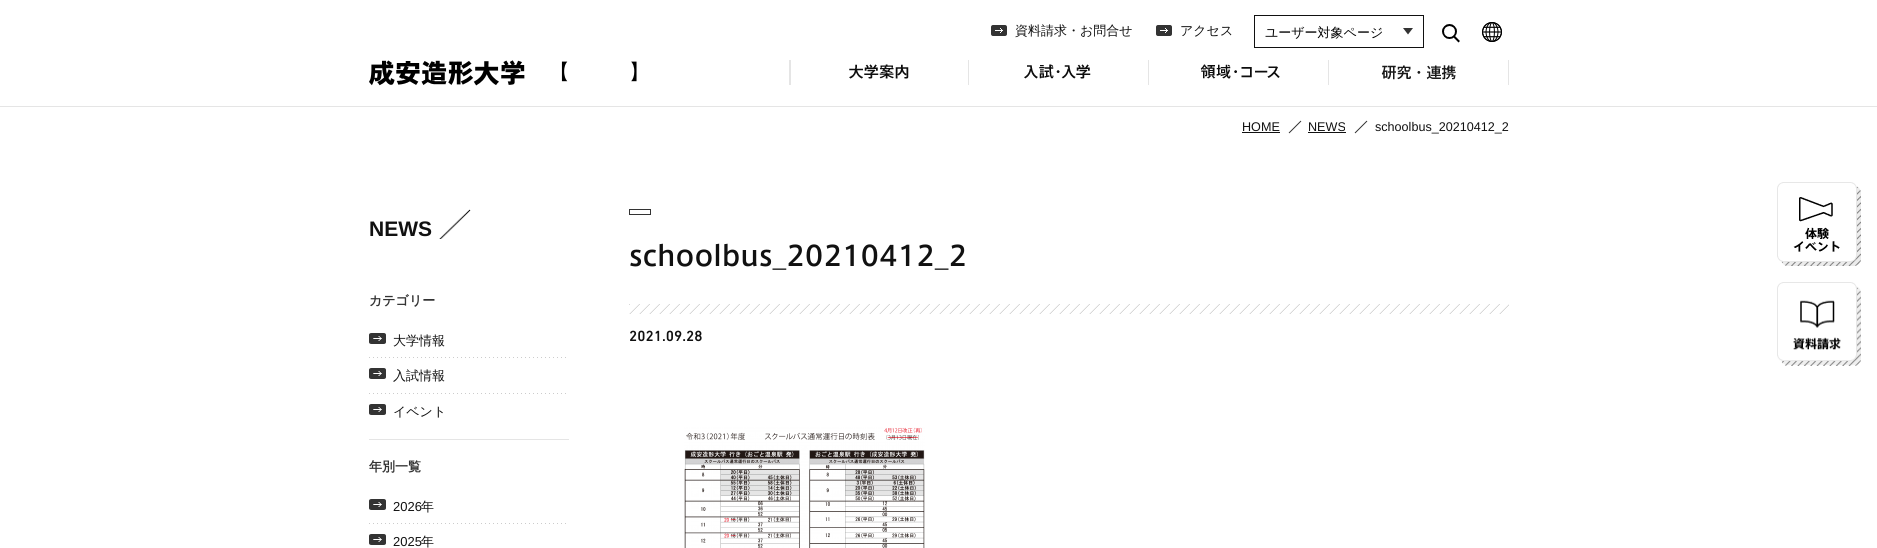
#include <cairo/cairo.h>
#include <math.h>
#include <stddef.h>


static void draw_image(cairo_t *cr, const char *path, double x, double y, double w, double h) {
  cairo_surface_t *image = cairo_image_surface_create_from_png(path);
  cairo_save(cr);
  cairo_set_source_surface(cr, image, x, y);
  cairo_rectangle(cr, x, y, w, h);
  cairo_fill(cr);
  cairo_restore(cr);
  cairo_surface_destroy(image);
}

static void draw(cairo_t *cr) {
  cairo_set_source_rgb(cr, 1, 1, 1);
  cairo_paint(cr);
  cairo_set_source_rgb(cr, 229 / 255.0, 229 / 255.0, 229 / 255.0);
  cairo_rectangle(cr, 0, 106, 1877, 1);
  cairo_fill(cr);
  draw_image(cr, "images/1.png", 991, 25, 16, 11);
  draw_image(cr, "images/1.png", 1156, 25, 16, 11);
  cairo_set_source_rgb(cr, 51 / 255.0, 51 / 255.0, 51 / 255.0);
  cairo_new_path(cr);
  cairo_move_to(cr, 1408, 34.5);
  cairo_line_to(cr, 1413, 28);
  cairo_line_to(cr, 1403, 28);
  cairo_close_path(cr);
  cairo_fill(cr);
  cairo_rectangle(cr, 1254.5, 15.5, 169, 32);
  cairo_set_source_rgb(cr, 17 / 255.0, 17 / 255.0, 17 / 255.0);
  cairo_set_line_width(cr, 1);
  cairo_stroke(cr);
  draw_image(cr, "images/2.png", 1442, 24, 18, 19);
  draw_image(cr, "images/3.png", 1482, 22, 20, 20);
  draw_image(cr, "images/4.png", 369, 60, 268, 26);
  cairo_set_source_rgb(cr, 229 / 255.0, 229 / 255.0, 229 / 255.0);
  cairo_rectangle(cr, 789, 60, 2, 25);
  cairo_fill(cr);
  cairo_rectangle(cr, 968, 60, 1, 25);
  cairo_fill(cr);
  draw_image(cr, "images/5.png", 849, 64, 60, 15);
  cairo_rectangle(cr, 1148, 60, 1, 25);
  cairo_fill(cr);
  draw_image(cr, "images/6.png", 1024, 64, 67, 15);
  cairo_rectangle(cr, 1328, 60, 1, 25);
  cairo_fill(cr);
  draw_image(cr, "images/7.png", 1200, 64, 80, 15);
  cairo_rectangle(cr, 1508, 60, 1, 25);
  cairo_fill(cr);
  draw_image(cr, "images/8.png", 1381, 65, 75, 15);
  cairo_set_source_rgb(cr, 17 / 255.0, 17 / 255.0, 17 / 255.0);
  cairo_rectangle(cr, 1242, 132, 38, 1);
  cairo_fill(cr);
  draw_image(cr, "images/9.png", 1288, 120, 14, 14);
  cairo_rectangle(cr, 1308, 132, 38, 1);
  cairo_fill(cr);
  draw_image(cr, "images/9.png", 1354, 120, 14, 14);
  draw_image(cr, "images/10.png", 439, 209, 32, 30);
  cairo_set_source_rgb(cr, 229 / 255.0, 229 / 255.0, 229 / 255.0);
  cairo_rectangle(cr, 369, 439, 200, 1);
  cairo_fill(cr);
  draw_image(cr, "images/11.png", 369, 357, 197, 1);
  draw_image(cr, "images/12.png", 369, 333, 17, 11);
  draw_image(cr, "images/11.png", 369, 393, 197, 1);
  draw_image(cr, "images/12.png", 369, 368, 17, 11);
  draw_image(cr, "images/12.png", 369, 404, 17, 11);
  draw_image(cr, "images/11.png", 369, 523, 197, 1);
  draw_image(cr, "images/12.png", 369, 499, 17, 11);
  draw_image(cr, "images/12.png", 369, 534, 17, 11);
  cairo_rectangle(cr, 629.5, 209.5, 21, 5);
  cairo_set_source_rgb(cr, 51 / 255.0, 51 / 255.0, 51 / 255.0);
  cairo_stroke(cr);
  draw_image(cr, "images/13.png", 629, 304, 880, 10);
  draw_image(cr, "images/14.png", 684, 427, 241, 121);
  draw_image(cr, "images/15.png", 1777, 182, 84, 84);
  draw_image(cr, "images/16.png", 1777, 282, 84, 84);
  cairo_select_font_face(cr, "WenQuanYi Zen Hei Medium", CAIRO_FONT_SLANT_NORMAL, CAIRO_FONT_WEIGHT_NORMAL);
  cairo_set_font_size(cr, 13);
  cairo_set_source_rgb(cr, 17 / 255.0, 17 / 255.0, 17 / 255.0);
  cairo_move_to(cr, 1015, 35);
  cairo_show_text(cr, "資料請求・お問合せ");
  cairo_move_to(cr, 1180, 35);
  cairo_show_text(cr, "アクセス");
  cairo_set_source_rgb(cr, 0, 0, 0);
  cairo_move_to(cr, 1265, 37);
  cairo_show_text(cr, "ユーザー対象ページ");
  cairo_select_font_face(cr, "Liberation Sans", CAIRO_FONT_SLANT_NORMAL, CAIRO_FONT_WEIGHT_NORMAL);
  cairo_set_font_size(cr, 12.6);
  cairo_set_source_rgb(cr, 17 / 255.0, 17 / 255.0, 17 / 255.0);
  cairo_move_to(cr, 1242, 131);
  cairo_show_text(cr, "HOME");
  cairo_move_to(cr, 1308, 131);
  cairo_show_text(cr, "NEWS");
  cairo_move_to(cr, 1375, 131);
  cairo_show_text(cr, "schoolbus_20210412_2");
  cairo_select_font_face(cr, "Liberation Sans", CAIRO_FONT_SLANT_NORMAL, CAIRO_FONT_WEIGHT_BOLD);
  cairo_set_font_size(cr, 21);
  cairo_move_to(cr, 369, 236);
  cairo_show_text(cr, "NEWS");
  cairo_select_font_face(cr, "WenQuanYi Zen Hei", CAIRO_FONT_SLANT_NORMAL, CAIRO_FONT_WEIGHT_BOLD);
  cairo_set_font_size(cr, 13);
  cairo_set_source_rgb(cr, 51 / 255.0, 51 / 255.0, 51 / 255.0);
  cairo_move_to(cr, 369, 305);
  cairo_show_text(cr, "カテゴリー");
  cairo_select_font_face(cr, "WenQuanYi Zen Hei Medium", CAIRO_FONT_SLANT_NORMAL, CAIRO_FONT_WEIGHT_NORMAL);
  cairo_set_source_rgb(cr, 17 / 255.0, 17 / 255.0, 17 / 255.0);
  cairo_move_to(cr, 393, 345);
  cairo_show_text(cr, "大学情報");
  cairo_move_to(cr, 393, 380);
  cairo_show_text(cr, "入試情報");
  cairo_move_to(cr, 393, 416);
  cairo_show_text(cr, "イベント");
  cairo_select_font_face(cr, "WenQuanYi Zen Hei", CAIRO_FONT_SLANT_NORMAL, CAIRO_FONT_WEIGHT_BOLD);
  cairo_set_source_rgb(cr, 51 / 255.0, 51 / 255.0, 51 / 255.0);
  cairo_move_to(cr, 369, 471);
  cairo_show_text(cr, "年別一覧");
  cairo_select_font_face(cr, "Liberation Sans", CAIRO_FONT_SLANT_NORMAL, CAIRO_FONT_WEIGHT_NORMAL);
  cairo_set_source_rgb(cr, 17 / 255.0, 17 / 255.0, 17 / 255.0);
  cairo_move_to(cr, 393, 511);
  cairo_show_text(cr, "2026");
  cairo_select_font_face(cr, "WenQuanYi Zen Hei Medium", CAIRO_FONT_SLANT_NORMAL, CAIRO_FONT_WEIGHT_NORMAL);
  cairo_move_to(cr, 421, 511);
  cairo_show_text(cr, "年");
  cairo_select_font_face(cr, "Liberation Sans", CAIRO_FONT_SLANT_NORMAL, CAIRO_FONT_WEIGHT_NORMAL);
  cairo_move_to(cr, 393, 546);
  cairo_show_text(cr, "2025");
  cairo_select_font_face(cr, "WenQuanYi Zen Hei Medium", CAIRO_FONT_SLANT_NORMAL, CAIRO_FONT_WEIGHT_NORMAL);
  cairo_move_to(cr, 421, 546);
  cairo_show_text(cr, "年");
  cairo_select_font_face(cr, "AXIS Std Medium", CAIRO_FONT_SLANT_NORMAL, CAIRO_FONT_WEIGHT_NORMAL);
  cairo_set_font_size(cr, 27.5);
  cairo_move_to(cr, 629, 266);
  cairo_show_text(cr, "schoolbus_20210412_2");
  cairo_select_font_face(cr, "DIN Next Medium", CAIRO_FONT_SLANT_NORMAL, CAIRO_FONT_WEIGHT_NORMAL);
  cairo_set_font_size(cr, 15);
  cairo_move_to(cr, 629, 341);
  cairo_show_text(cr, "2021.09.28");
}

int main(void) {
  cairo_surface_t *surface = cairo_image_surface_create(CAIRO_FORMAT_RGB24, 1877, 548);
  cairo_t *cr = cairo_create(surface);
  cairo_font_options_t *options = cairo_font_options_create();
  cairo_font_options_set_hint_metrics(options, CAIRO_HINT_METRICS_OFF);
  cairo_font_options_set_hint_style(options, CAIRO_HINT_STYLE_NONE);
  cairo_set_font_options(cr, options);
  cairo_set_miter_limit(cr, 4);
  draw(cr);
  cairo_surface_write_to_png(surface, "out.png");
  cairo_font_options_destroy(options);
  cairo_destroy(cr);
  cairo_surface_destroy(surface);
  return 0;
}
